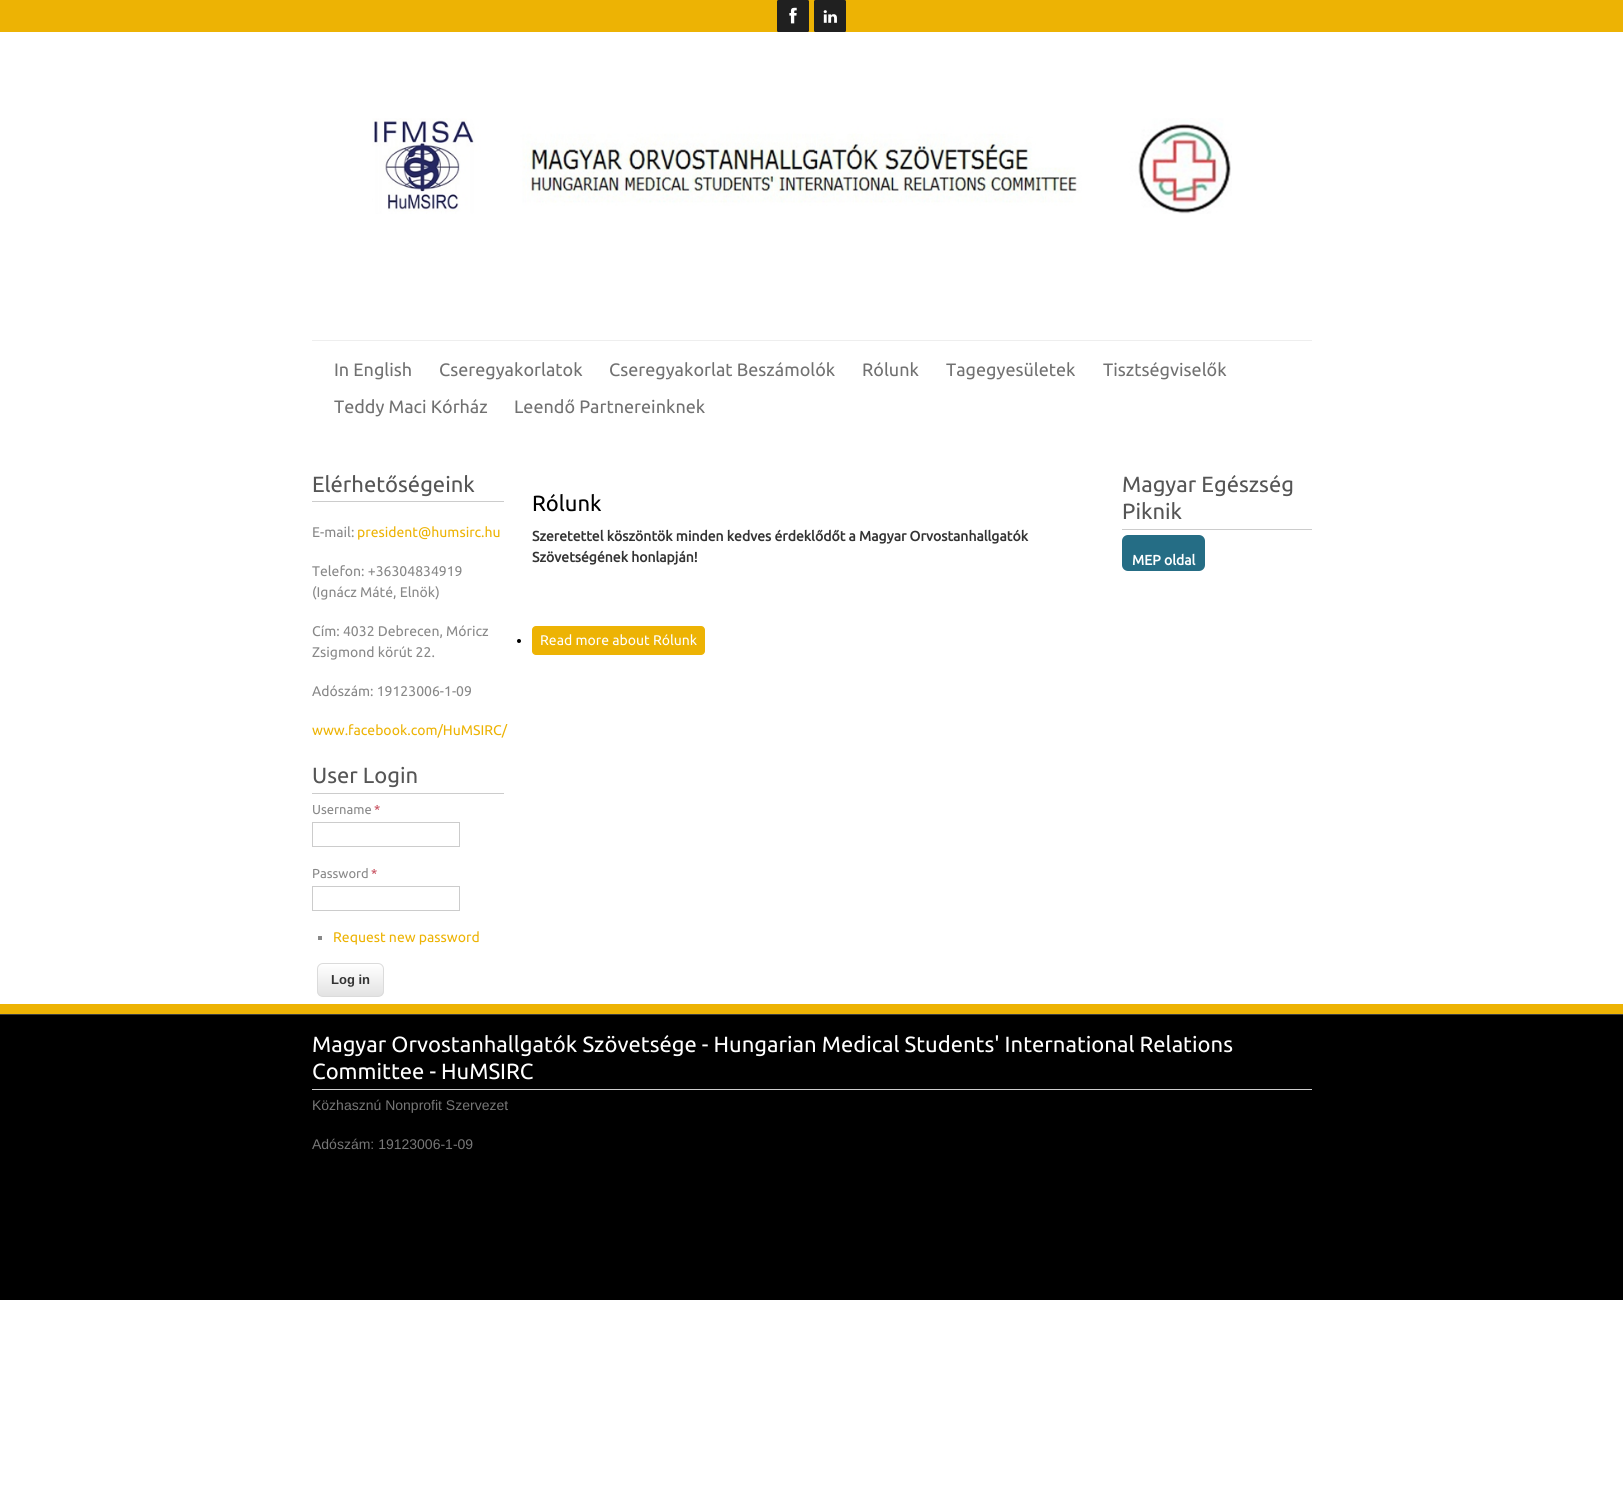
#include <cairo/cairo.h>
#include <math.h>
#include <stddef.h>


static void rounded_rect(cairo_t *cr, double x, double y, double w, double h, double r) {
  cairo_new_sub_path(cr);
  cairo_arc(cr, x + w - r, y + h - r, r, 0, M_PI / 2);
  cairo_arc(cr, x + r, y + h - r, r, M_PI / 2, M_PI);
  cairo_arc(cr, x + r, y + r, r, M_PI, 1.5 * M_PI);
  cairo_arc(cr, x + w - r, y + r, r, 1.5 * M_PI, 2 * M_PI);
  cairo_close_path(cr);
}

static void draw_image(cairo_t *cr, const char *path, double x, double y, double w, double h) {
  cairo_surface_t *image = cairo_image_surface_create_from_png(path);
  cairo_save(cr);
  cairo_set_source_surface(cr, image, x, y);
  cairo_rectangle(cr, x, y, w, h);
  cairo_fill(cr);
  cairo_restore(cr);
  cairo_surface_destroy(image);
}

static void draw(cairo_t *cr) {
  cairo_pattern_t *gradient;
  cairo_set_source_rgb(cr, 1, 1, 1);
  cairo_paint(cr);
  cairo_set_source_rgb(cr, 237 / 255.0, 179 / 255.0, 4 / 255.0);
  cairo_rectangle(cr, 0, 0, 1623, 32);
  cairo_fill(cr);
  draw_image(cr, "images/1.png", 777, 0, 32, 32);
  draw_image(cr, "images/2.png", 814, 0, 32, 32);
  draw_image(cr, "images/3.png", 372, 118, 860, 96);
  cairo_set_source_rgb(cr, 238 / 255.0, 238 / 255.0, 238 / 255.0);
  cairo_rectangle(cr, 312, 340, 1000, 1);
  cairo_fill(cr);
  cairo_set_source_rgb(cr, 204 / 255.0, 204 / 255.0, 204 / 255.0);
  cairo_rectangle(cr, 312, 501, 192, 1);
  cairo_fill(cr);
  cairo_rectangle(cr, 312, 793, 192, 1);
  cairo_fill(cr);
  cairo_rectangle(cr, 312.5, 822.5, 147, 24);
  cairo_set_line_width(cr, 1);
  cairo_stroke(cr);
  cairo_rectangle(cr, 312.5, 886.5, 147, 24);
  cairo_stroke(cr);
  cairo_set_source_rgb(cr, 136 / 255.0, 136 / 255.0, 136 / 255.0);
  cairo_rectangle(cr, 318, 936, 4, 4);
  cairo_fill(cr);
  cairo_save(cr);
  rounded_rect(cr, 317, 963, 67, 34, 6);
  cairo_clip(cr);
  gradient = cairo_pattern_create_linear(351, 964, 351, 996);
  cairo_pattern_add_color_stop_rgba(gradient, 0, 1, 1, 1, 1);
  cairo_pattern_add_color_stop_rgba(gradient, 1, 227 / 255.0, 227 / 255.0, 227 / 255.0, 1);
  cairo_set_source(cr, gradient);
  cairo_pattern_destroy(gradient);
  cairo_rectangle(cr, 317, 964, 67, 32);
  cairo_fill(cr);
  cairo_restore(cr);
  rounded_rect(cr, 317.5, 963.5, 66, 33, 5.5);
  cairo_set_source_rgb(cr, 219 / 255.0, 219 / 255.0, 219 / 255.0);
  cairo_stroke(cr);
  cairo_set_source_rgb(cr, 0, 0, 0);
  cairo_arc(cr, 519, 641, 2, 0, 2 * M_PI);
  cairo_fill(cr);
  cairo_set_source_rgb(cr, 237 / 255.0, 179 / 255.0, 4 / 255.0);
  rounded_rect(cr, 532, 626, 173, 29, 4);
  cairo_fill(cr);
  cairo_set_source_rgb(cr, 204 / 255.0, 204 / 255.0, 204 / 255.0);
  cairo_rectangle(cr, 1122, 529, 190, 1);
  cairo_fill(cr);
  cairo_set_source_rgb(cr, 37 / 255.0, 109 / 255.0, 133 / 255.0);
  rounded_rect(cr, 1122, 535, 83, 36, 6);
  cairo_fill(cr);
  cairo_set_source_rgb(cr, 237 / 255.0, 179 / 255.0, 4 / 255.0);
  cairo_rectangle(cr, 0, 1004, 1623, 10);
  cairo_fill(cr);
  cairo_set_source_rgb(cr, 0, 0, 0);
  cairo_rectangle(cr, 0, 1015, 1623, 285);
  cairo_fill(cr);
  cairo_set_source_rgb(cr, 59 / 255.0, 60 / 255.0, 61 / 255.0);
  cairo_rectangle(cr, 0, 1014, 1623, 1);
  cairo_fill(cr);
  cairo_set_source_rgb(cr, 204 / 255.0, 204 / 255.0, 204 / 255.0);
  cairo_rectangle(cr, 312, 1089, 1000, 1);
  cairo_fill(cr);
  cairo_select_font_face(cr, "Ubuntu", CAIRO_FONT_SLANT_NORMAL, CAIRO_FONT_WEIGHT_NORMAL);
  cairo_set_font_size(cr, 18);
  cairo_set_source_rgb(cr, 113 / 255.0, 113 / 255.0, 113 / 255.0);
  cairo_move_to(cr, 334, 376);
  cairo_show_text(cr, "In English");
  cairo_move_to(cr, 439, 376);
  cairo_show_text(cr, "Cseregyakorlatok");
  cairo_move_to(cr, 609, 376);
  cairo_show_text(cr, "Cseregyakorlat Beszámolók");
  cairo_move_to(cr, 862, 376);
  cairo_show_text(cr, "Rólunk");
  cairo_move_to(cr, 946, 376);
  cairo_show_text(cr, "Tagegyesületek");
  cairo_move_to(cr, 1103, 376);
  cairo_show_text(cr, "Tisztségviselők");
  cairo_move_to(cr, 334, 413);
  cairo_show_text(cr, "Teddy Maci Kórház");
  cairo_move_to(cr, 514, 413);
  cairo_show_text(cr, "Leendő Partnereinknek");
  cairo_set_font_size(cr, 22);
  cairo_set_source_rgb(cr, 85 / 255.0, 85 / 255.0, 85 / 255.0);
  cairo_move_to(cr, 312, 492);
  cairo_show_text(cr, "Elérhetőségeink");
  cairo_set_font_size(cr, 14);
  cairo_set_source_rgb(cr, 136 / 255.0, 136 / 255.0, 136 / 255.0);
  cairo_move_to(cr, 312, 537);
  cairo_show_text(cr, "E-mail:");
  cairo_set_source_rgb(cr, 237 / 255.0, 179 / 255.0, 4 / 255.0);
  cairo_move_to(cr, 357, 537);
  cairo_show_text(cr, "president@humsirc.hu");
  cairo_set_source_rgb(cr, 136 / 255.0, 136 / 255.0, 136 / 255.0);
  cairo_move_to(cr, 312, 576);
  cairo_show_text(cr, "Telefon: +36304834919");
  cairo_move_to(cr, 312, 597);
  cairo_show_text(cr, "(Ignácz Máté, Elnök)");
  cairo_move_to(cr, 312, 636);
  cairo_show_text(cr, "Cím: 4032 Debrecen, Móricz");
  cairo_move_to(cr, 312, 657);
  cairo_show_text(cr, "Zsigmond körút 22.");
  cairo_move_to(cr, 312, 696);
  cairo_show_text(cr, "Adószám: 19123006-1-09");
  cairo_set_source_rgb(cr, 237 / 255.0, 179 / 255.0, 4 / 255.0);
  cairo_move_to(cr, 312, 735);
  cairo_show_text(cr, "www.facebook.com/HuMSIRC/");
  cairo_set_font_size(cr, 22);
  cairo_set_source_rgb(cr, 85 / 255.0, 85 / 255.0, 85 / 255.0);
  cairo_move_to(cr, 312, 783);
  cairo_show_text(cr, "User Login");
  cairo_set_font_size(cr, 13);
  cairo_set_source_rgb(cr, 136 / 255.0, 136 / 255.0, 136 / 255.0);
  cairo_move_to(cr, 312, 814);
  cairo_show_text(cr, "Username");
  cairo_set_source_rgb(cr, 194 / 255.0, 64 / 255.0, 80 / 255.0);
  cairo_move_to(cr, 374, 814);
  cairo_show_text(cr, "*");
  cairo_set_source_rgb(cr, 136 / 255.0, 136 / 255.0, 136 / 255.0);
  cairo_move_to(cr, 312, 878);
  cairo_show_text(cr, "Password");
  cairo_set_source_rgb(cr, 194 / 255.0, 64 / 255.0, 80 / 255.0);
  cairo_move_to(cr, 371, 878);
  cairo_show_text(cr, "*");
  cairo_set_font_size(cr, 14);
  cairo_set_source_rgb(cr, 237 / 255.0, 179 / 255.0, 4 / 255.0);
  cairo_move_to(cr, 333, 942);
  cairo_show_text(cr, "Request new password");
  cairo_select_font_face(cr, "Liberation Sans", CAIRO_FONT_SLANT_NORMAL, CAIRO_FONT_WEIGHT_BOLD);
  cairo_set_font_size(cr, 13);
  cairo_set_source_rgb(cr, 51 / 255.0, 51 / 255.0, 51 / 255.0);
  cairo_move_to(cr, 331, 984);
  cairo_show_text(cr, "Log in");
  cairo_select_font_face(cr, "Ubuntu", CAIRO_FONT_SLANT_NORMAL, CAIRO_FONT_WEIGHT_NORMAL);
  cairo_set_font_size(cr, 22);
  cairo_set_source_rgb(cr, 0, 0, 0);
  cairo_move_to(cr, 532, 511);
  cairo_show_text(cr, "Rólunk");
  cairo_select_font_face(cr, "Ubuntu", CAIRO_FONT_SLANT_NORMAL, CAIRO_FONT_WEIGHT_BOLD);
  cairo_set_font_size(cr, 14);
  cairo_set_source_rgb(cr, 51 / 255.0, 51 / 255.0, 51 / 255.0);
  cairo_move_to(cr, 532, 541);
  cairo_show_text(cr, "Szeretettel köszöntök minden kedves érdeklődőt a Magyar Orvostanhallgatók");
  cairo_move_to(cr, 532, 562);
  cairo_show_text(cr, "Szövetségének honlapján!");
  cairo_select_font_face(cr, "Ubuntu", CAIRO_FONT_SLANT_NORMAL, CAIRO_FONT_WEIGHT_NORMAL);
  cairo_set_source_rgb(cr, 1, 1, 1);
  cairo_move_to(cr, 540, 645);
  cairo_show_text(cr, "Read more about Rólunk");
  cairo_set_font_size(cr, 22);
  cairo_set_source_rgb(cr, 85 / 255.0, 85 / 255.0, 85 / 255.0);
  cairo_move_to(cr, 1122, 492);
  cairo_show_text(cr, "Magyar Egészség");
  cairo_move_to(cr, 1122, 519);
  cairo_show_text(cr, "Piknik");
  cairo_select_font_face(cr, "Ubuntu", CAIRO_FONT_SLANT_NORMAL, CAIRO_FONT_WEIGHT_BOLD);
  cairo_set_font_size(cr, 14);
  cairo_set_source_rgb(cr, 1, 1, 1);
  cairo_move_to(cr, 1132, 565);
  cairo_show_text(cr, "MEP oldal");
  cairo_select_font_face(cr, "Ubuntu", CAIRO_FONT_SLANT_NORMAL, CAIRO_FONT_WEIGHT_NORMAL);
  cairo_set_font_size(cr, 22);
  cairo_move_to(cr, 312, 1052);
  cairo_show_text(cr, "Magyar Orvostanhallgatók Szövetsége - Hungarian Medical Students' International Relations");
  cairo_move_to(cr, 312, 1079);
  cairo_show_text(cr, "Committee - HuMSIRC");
  cairo_select_font_face(cr, "Liberation Sans", CAIRO_FONT_SLANT_NORMAL, CAIRO_FONT_WEIGHT_NORMAL);
  cairo_set_font_size(cr, 14);
  cairo_set_source_rgb(cr, 119 / 255.0, 119 / 255.0, 119 / 255.0);
  cairo_move_to(cr, 312, 1110);
  cairo_show_text(cr, "Közhasznú Nonprofit Szervezet");
  cairo_move_to(cr, 312, 1149);
  cairo_show_text(cr, "Adószám: 19123006-1-09");
}

int main(void) {
  cairo_surface_t *surface = cairo_image_surface_create(CAIRO_FORMAT_RGB24, 1623, 1511);
  cairo_t *cr = cairo_create(surface);
  cairo_font_options_t *options = cairo_font_options_create();
  cairo_font_options_set_hint_metrics(options, CAIRO_HINT_METRICS_OFF);
  cairo_font_options_set_hint_style(options, CAIRO_HINT_STYLE_NONE);
  cairo_set_font_options(cr, options);
  cairo_set_miter_limit(cr, 4);
  draw(cr);
  cairo_surface_write_to_png(surface, "out.png");
  cairo_font_options_destroy(options);
  cairo_destroy(cr);
  cairo_surface_destroy(surface);
  return 0;
}
